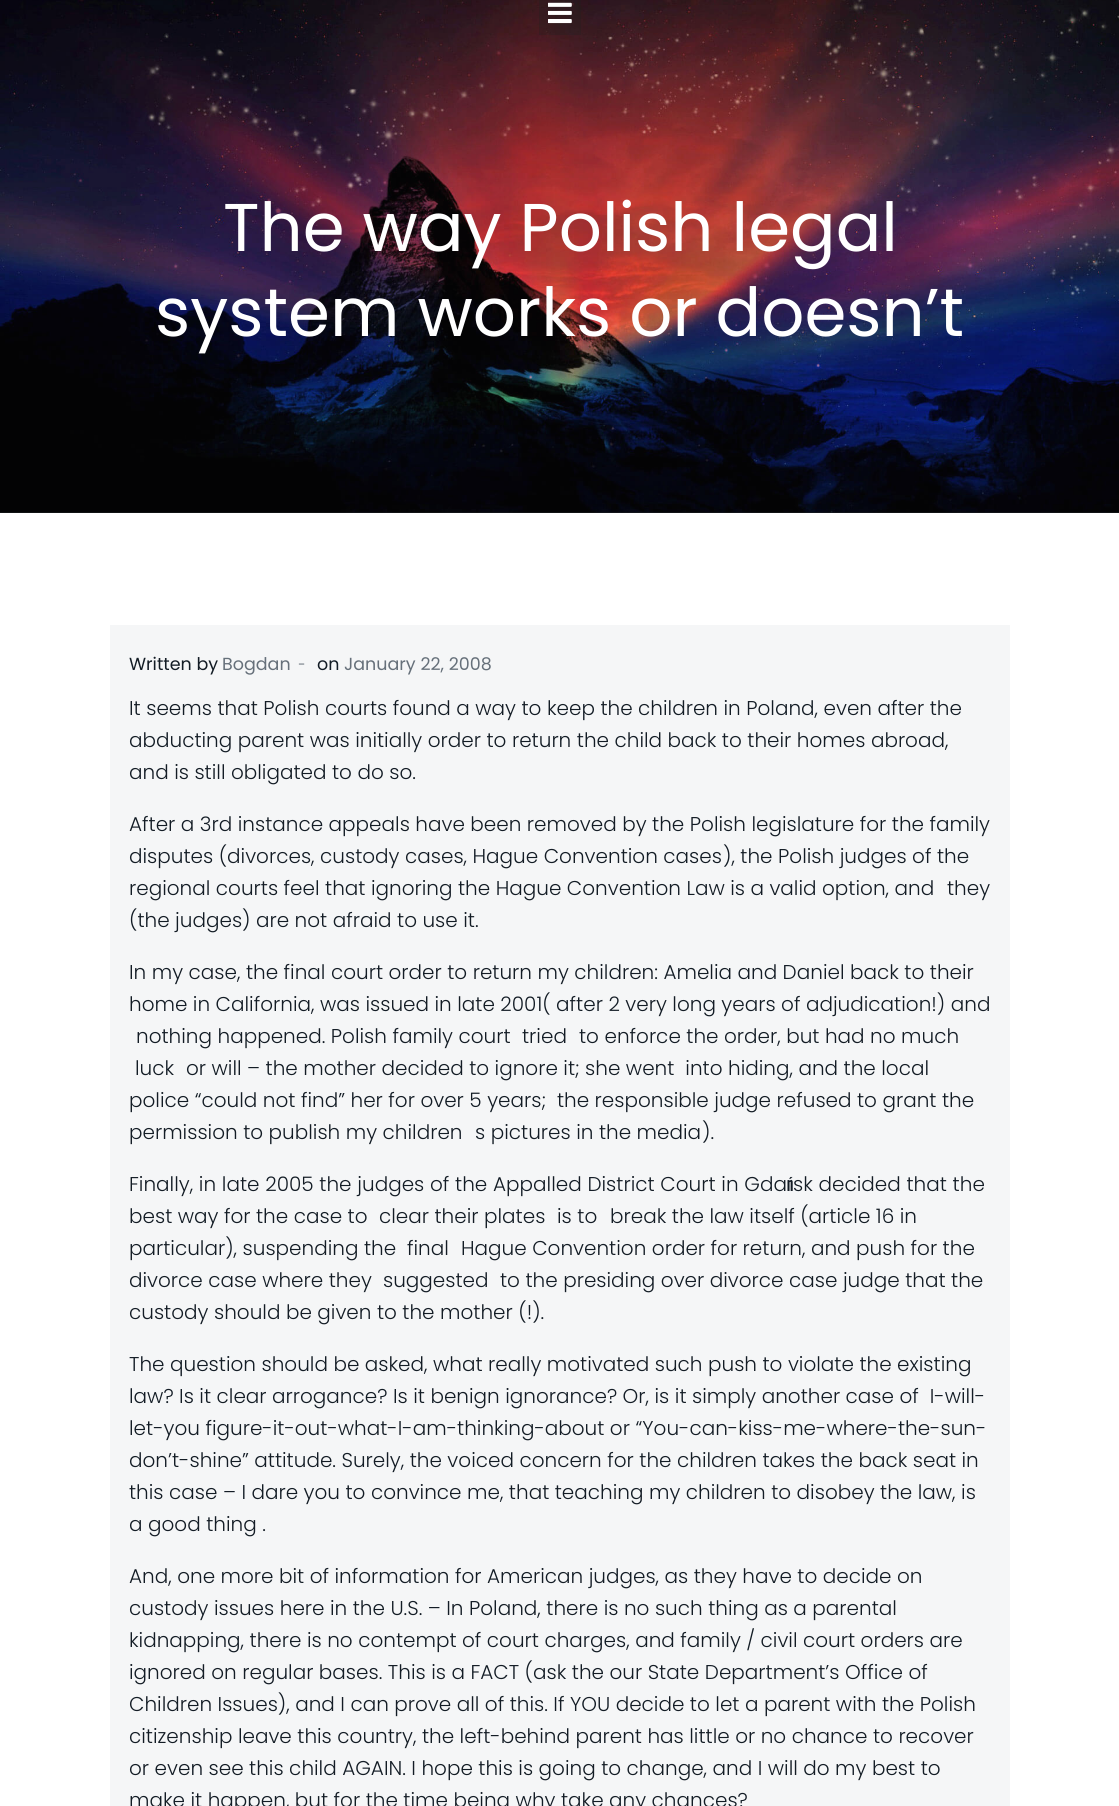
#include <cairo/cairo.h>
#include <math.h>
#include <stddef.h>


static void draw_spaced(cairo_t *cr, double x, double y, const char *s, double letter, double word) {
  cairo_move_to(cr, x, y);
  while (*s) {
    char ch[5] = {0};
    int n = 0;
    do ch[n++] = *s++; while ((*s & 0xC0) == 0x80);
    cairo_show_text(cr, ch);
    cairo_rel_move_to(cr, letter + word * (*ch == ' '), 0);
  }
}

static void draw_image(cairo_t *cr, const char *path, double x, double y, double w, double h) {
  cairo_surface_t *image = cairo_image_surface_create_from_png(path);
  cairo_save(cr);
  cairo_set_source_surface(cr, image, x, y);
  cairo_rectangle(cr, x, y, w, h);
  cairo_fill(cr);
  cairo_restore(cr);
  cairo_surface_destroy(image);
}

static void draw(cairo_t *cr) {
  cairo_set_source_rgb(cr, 1, 1, 1);
  cairo_paint(cr);
  cairo_set_source_rgb(cr, 31 / 255.0, 34 / 255.0, 37 / 255.0);
  cairo_rectangle(cr, 0, 512, 1119, 1);
  cairo_fill(cr);
  draw_image(cr, "images/2.png", 0, 0, 1119, 513);
  cairo_set_source_rgba(cr, 31 / 255.0, 31 / 255.0, 31 / 255.0, 0.3);
  cairo_rectangle(cr, 539, 0, 42, 35);
  cairo_fill(cr);
  draw_image(cr, "images/1.png", 548, 2, 24, 22);
  cairo_set_source_rgb(cr, 245 / 255.0, 246 / 255.0, 247 / 255.0);
  cairo_rectangle(cr, 110, 625, 900, 1181);
  cairo_fill(cr);
  cairo_select_font_face(cr, "Poppins", CAIRO_FONT_SLANT_NORMAL, CAIRO_FONT_WEIGHT_NORMAL);
  cairo_set_font_size(cr, 67.5);
  cairo_set_source_rgb(cr, 1, 1, 1);
  cairo_move_to(cr, 223, 251);
  cairo_show_text(cr, "The way Polish legal");
  cairo_move_to(cr, 155, 336);
  cairo_show_text(cr, "system works or doesn’t");
  cairo_set_font_size(cr, 17.5);
  cairo_set_source_rgb(cr, 19 / 255.0, 28 / 255.0, 37 / 255.0);
  cairo_move_to(cr, 129, 670);
  cairo_show_text(cr, "Written by");
  cairo_set_source_rgb(cr, 102 / 255.0, 112 / 255.0, 122 / 255.0);
  cairo_move_to(cr, 222, 670);
  cairo_show_text(cr, "Bogdan");
  cairo_select_font_face(cr, "Open Sans Light", CAIRO_FONT_SLANT_NORMAL, CAIRO_FONT_WEIGHT_NORMAL);
  cairo_set_font_size(cr, 22);
  draw_spaced(cr, 298, 670, "-", 2, 0);
  cairo_select_font_face(cr, "Poppins", CAIRO_FONT_SLANT_NORMAL, CAIRO_FONT_WEIGHT_NORMAL);
  cairo_set_font_size(cr, 17.5);
  cairo_set_source_rgb(cr, 19 / 255.0, 28 / 255.0, 37 / 255.0);
  cairo_move_to(cr, 317, 670);
  cairo_show_text(cr, "on");
  cairo_set_source_rgb(cr, 102 / 255.0, 112 / 255.0, 122 / 255.0);
  cairo_move_to(cr, 344, 670);
  cairo_show_text(cr, "January 22, 2008");
  cairo_select_font_face(cr, "Poppins Light", CAIRO_FONT_SLANT_NORMAL, CAIRO_FONT_WEIGHT_NORMAL);
  cairo_set_font_size(cr, 20);
  cairo_set_source_rgb(cr, 19 / 255.0, 28 / 255.0, 37 / 255.0);
  cairo_move_to(cr, 129, 715);
  cairo_show_text(cr, "It seems that Polish courts found a way to keep the children in Poland, even after the");
  cairo_move_to(cr, 129, 747);
  cairo_show_text(cr, "abducting parent was initially order to return the child back to their homes abroad,");
  cairo_move_to(cr, 129, 779);
  cairo_show_text(cr, "and is still obligated to do so.");
  cairo_move_to(cr, 129, 831);
  cairo_show_text(cr, "After a 3rd instance appeals have been removed by the Polish legislature for the family");
  cairo_move_to(cr, 129, 863);
  cairo_show_text(cr, "disputes (divorces, custody cases, Hague Convention cases");
  cairo_move_to(cr, 723, 863);
  cairo_show_text(cr, "), the Polish judges of the");
  cairo_move_to(cr, 129, 895);
  cairo_show_text(cr, "regional courts feel that ignoring the Hague Convention Law is a valid option, and");
  cairo_move_to(cr, 947, 895);
  cairo_show_text(cr, "they");
  cairo_move_to(cr, 129, 927);
  cairo_show_text(cr, "(the judges) are not afraid to use it.");
  cairo_move_to(cr, 129, 979);
  cairo_show_text(cr, "In my case, the final court order to return my children: Amelia and Daniel back to their");
  cairo_move_to(cr, 129, 1011);
  cairo_show_text(cr, "home in California, was issued in late 2001( after 2 very long years of adjudication!) and");
  cairo_move_to(cr, 136, 1043);
  cairo_show_text(cr, "nothing happened. Polish family court");
  cairo_move_to(cr, 522, 1043);
  cairo_show_text(cr, "tried");
  cairo_move_to(cr, 579, 1043);
  cairo_show_text(cr, "to enforce the order, but had no much");
  cairo_move_to(cr, 135, 1075);
  cairo_show_text(cr, "luck");
  cairo_move_to(cr, 186, 1075);
  cairo_show_text(cr, "or will – the mother decided to ignore it; she went  into hiding, and the local");
  cairo_move_to(cr, 129, 1107);
  cairo_show_text(cr, "police “could not find” her for over 5 years;  the responsible judge refused to grant the");
  cairo_move_to(cr, 129, 1139);
  cairo_show_text(cr, "permission to publish my children");
  cairo_move_to(cr, 475, 1139);
  cairo_show_text(cr, "s pictures in the media");
  cairo_move_to(cr, 702, 1139);
  cairo_show_text(cr, ").");
  draw_spaced(cr, 129, 1191, "Finally, in late 2005 the judges of the Appalled District Court in Gda", 0, 0.25);
  cairo_select_font_face(cr, "League Gothic", CAIRO_FONT_SLANT_NORMAL, CAIRO_FONT_WEIGHT_NORMAL);
  cairo_move_to(cr, 787, 1191);
  cairo_show_text(cr, "ń");
  cairo_select_font_face(cr, "Poppins Light", CAIRO_FONT_SLANT_NORMAL, CAIRO_FONT_WEIGHT_NORMAL);
  draw_spaced(cr, 793, 1191, "sk decided that the", 0, 0.25);
  cairo_move_to(cr, 129, 1223);
  cairo_show_text(cr, "best way for the case to");
  cairo_move_to(cr, 379, 1223);
  cairo_show_text(cr, "clear their plates");
  cairo_move_to(cr, 557, 1223);
  cairo_show_text(cr, "is to");
  cairo_move_to(cr, 610, 1223);
  cairo_show_text(cr, "break the law itself (article 16 in");
  cairo_move_to(cr, 129, 1255);
  cairo_show_text(cr, "particular), suspending the");
  cairo_move_to(cr, 407, 1255);
  cairo_show_text(cr, "final");
  cairo_move_to(cr, 461, 1255);
  cairo_show_text(cr, "Hague Convention order for return, and push for the");
  cairo_move_to(cr, 129, 1287);
  cairo_show_text(cr, "divorce case where they");
  cairo_move_to(cr, 383, 1287);
  cairo_show_text(cr, "suggested");
  cairo_move_to(cr, 500, 1287);
  cairo_show_text(cr, "to the presiding over divorce case judge that the");
  cairo_move_to(cr, 129, 1319);
  cairo_show_text(cr, "custody should be given to the mother (!).");
  cairo_move_to(cr, 129, 1371);
  cairo_show_text(cr, "The question should be asked, what really motivated such push to violate the existing");
  cairo_move_to(cr, 129, 1403);
  cairo_show_text(cr, "law? Is it clear arrogance? Is it benign ignorance? Or, is it simply another case of  I-will-");
  cairo_move_to(cr, 129, 1435);
  cairo_show_text(cr, "let-you figure-it-out-what-I-am-thinking-about or “You-can-kiss-me-where-the-sun-");
  cairo_move_to(cr, 129, 1467);
  cairo_show_text(cr, "don’t-shine” attitude. Surely, the voiced concern for the children takes the back seat in");
  cairo_move_to(cr, 129, 1499);
  cairo_show_text(cr, "this case – I dare you to convince me, that teaching my children to disobey the law, is");
  cairo_move_to(cr, 129, 1531);
  cairo_show_text(cr, "a good thing .");
  cairo_move_to(cr, 129, 1583);
  cairo_show_text(cr, "And, one more bit of information for American judges, as they have to decide on");
  cairo_move_to(cr, 129, 1615);
  cairo_show_text(cr, "custody issues here in the U.S. – In Poland, there is no such thing as a parental");
  cairo_move_to(cr, 129, 1647);
  cairo_show_text(cr, "kidnapping, there is no contempt of court charges, and family / civil court orders are");
  cairo_move_to(cr, 129, 1679);
  cairo_show_text(cr, "ignored on regular bases. This is a FACT (ask the our State Department’s Office of");
  cairo_move_to(cr, 129, 1711);
  cairo_show_text(cr, "Children Issues), and I can prove all of this. If YOU decide to let a parent with the Polish");
  cairo_move_to(cr, 129, 1743);
  cairo_show_text(cr, "citizenship leave this country, the left-behind parent has little or no chance to recover");
  cairo_move_to(cr, 129, 1775);
  cairo_show_text(cr, "or even see this child AGAIN. I hope this is going to change, and I will do my best to");
  cairo_move_to(cr, 129, 1807);
  cairo_show_text(cr, "make it happen, but for the time being why take any chances?");
}

int main(void) {
  cairo_surface_t *surface = cairo_image_surface_create(CAIRO_FORMAT_RGB24, 1119, 1806);
  cairo_t *cr = cairo_create(surface);
  cairo_font_options_t *options = cairo_font_options_create();
  cairo_font_options_set_hint_metrics(options, CAIRO_HINT_METRICS_OFF);
  cairo_font_options_set_hint_style(options, CAIRO_HINT_STYLE_NONE);
  cairo_set_font_options(cr, options);
  cairo_set_miter_limit(cr, 4);
  draw(cr);
  cairo_surface_write_to_png(surface, "out.png");
  cairo_font_options_destroy(options);
  cairo_destroy(cr);
  cairo_surface_destroy(surface);
  return 0;
}
